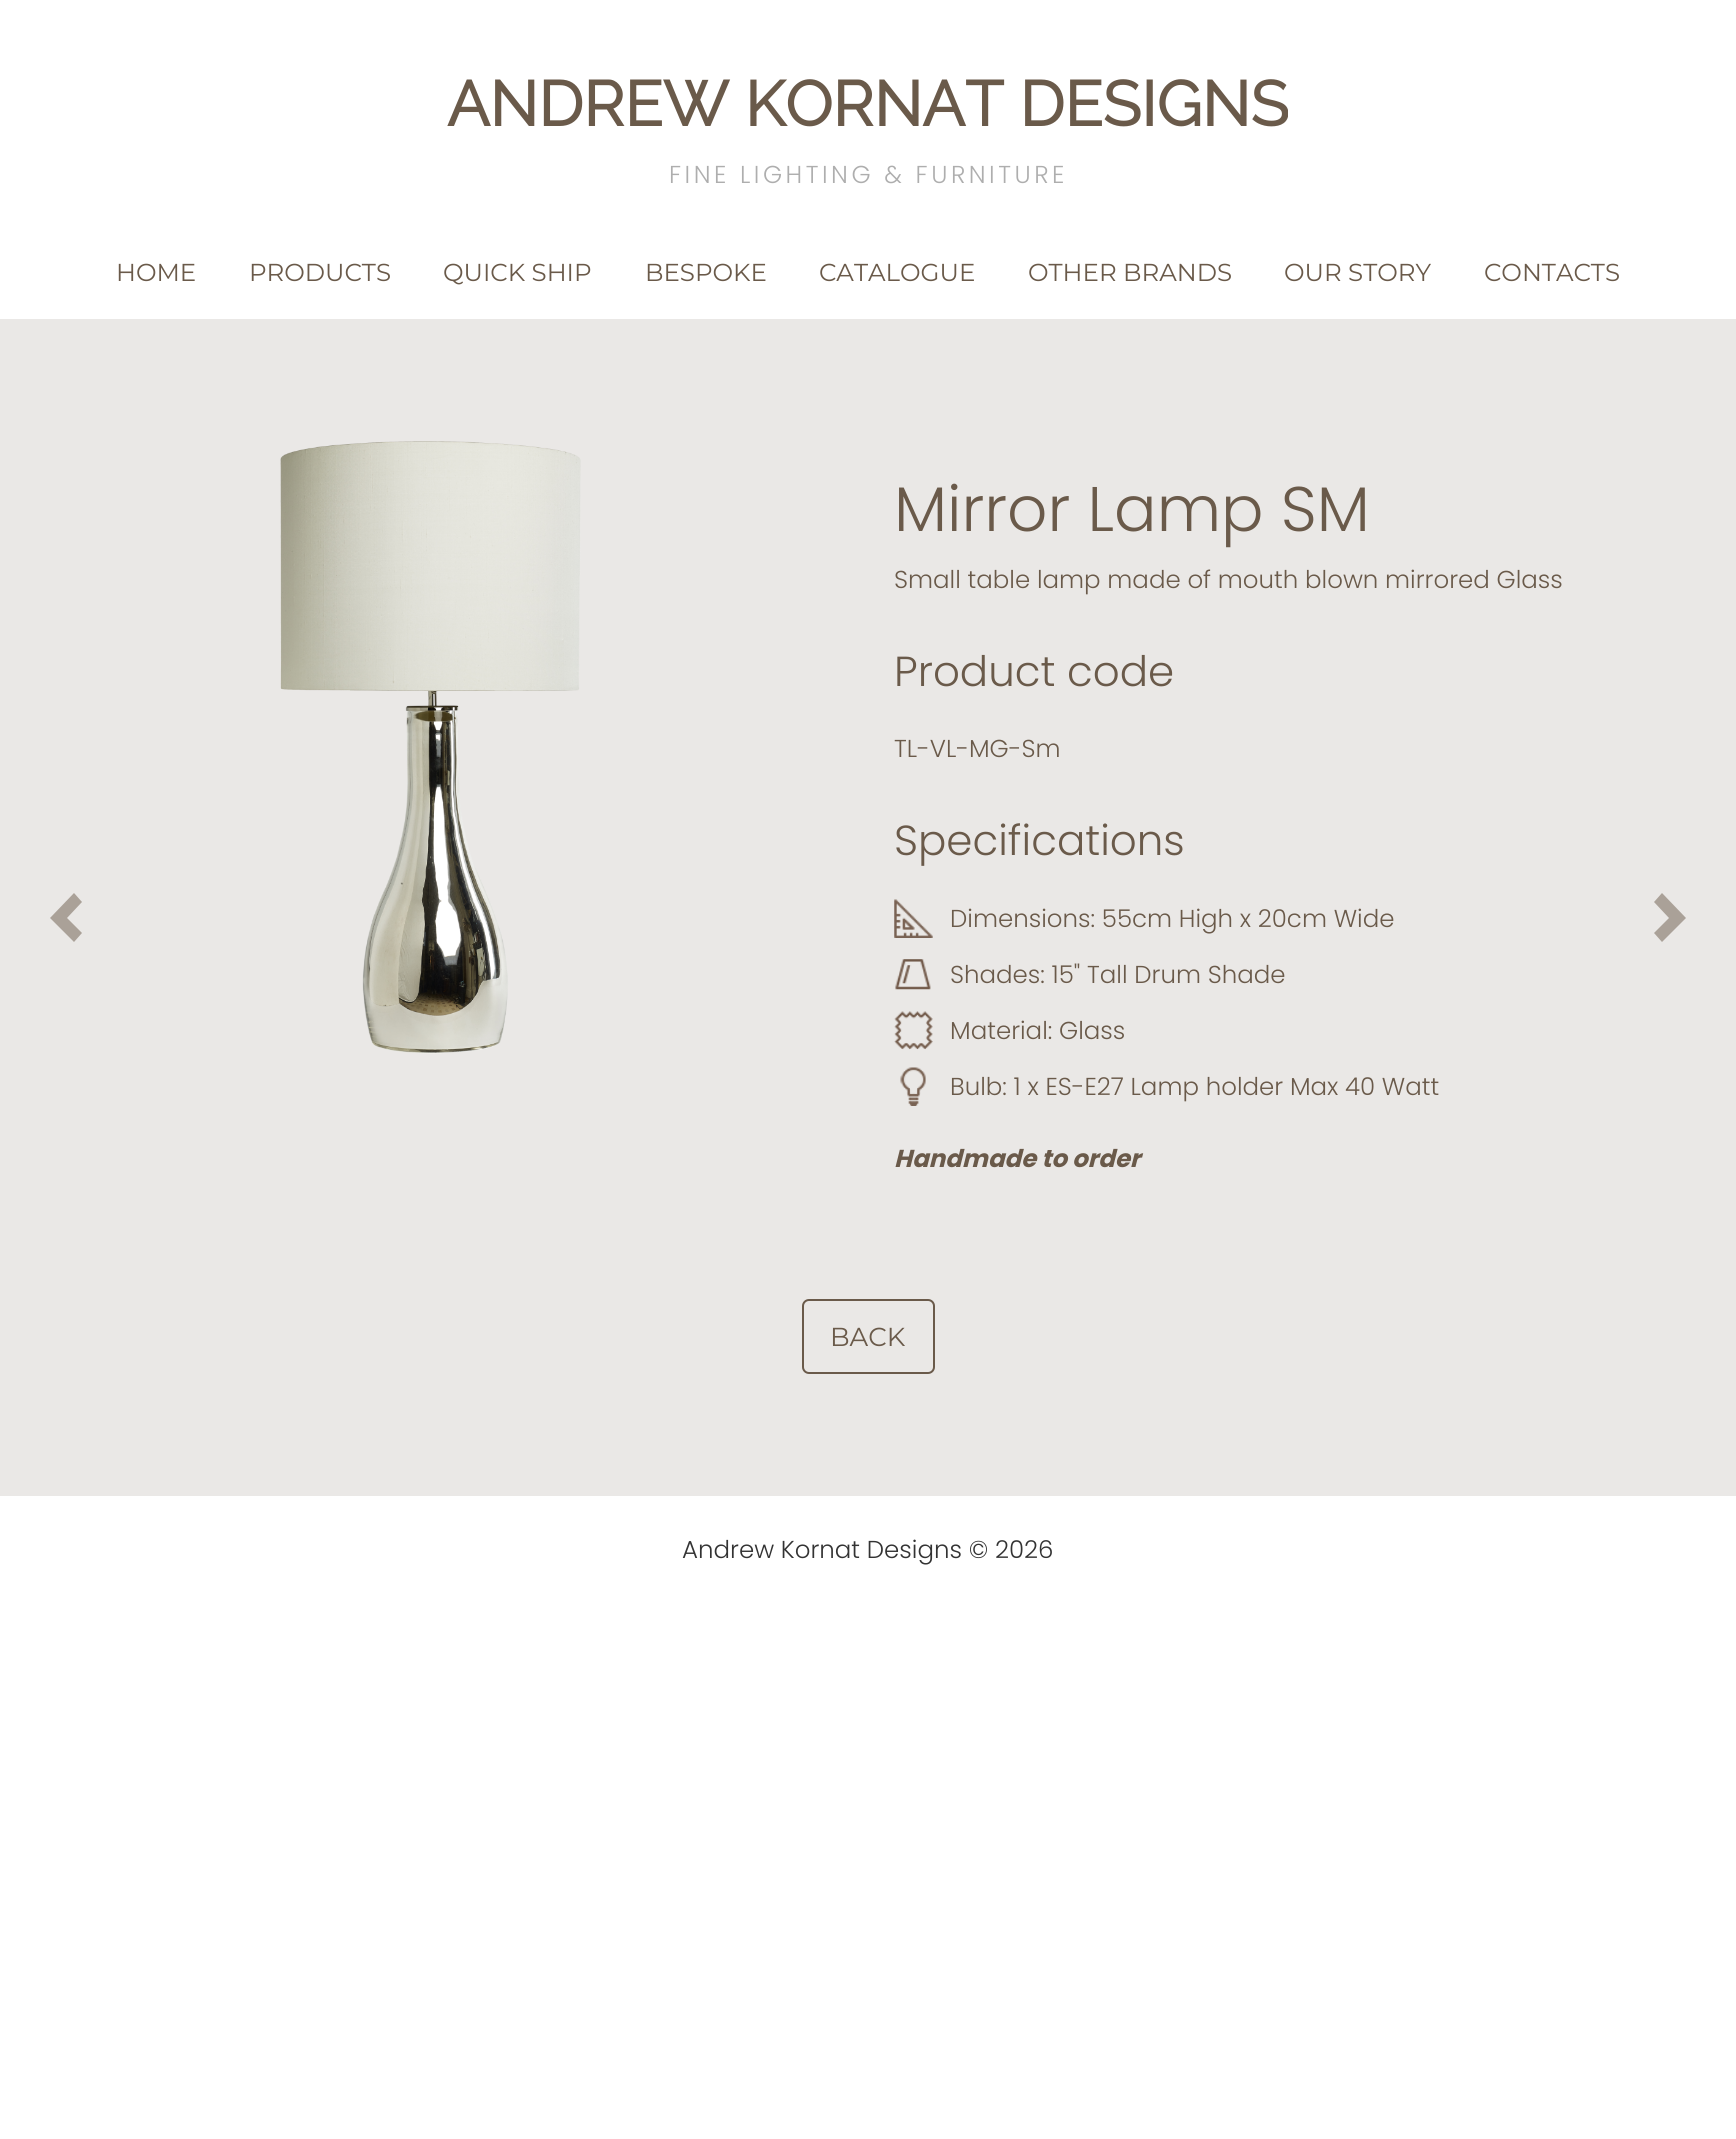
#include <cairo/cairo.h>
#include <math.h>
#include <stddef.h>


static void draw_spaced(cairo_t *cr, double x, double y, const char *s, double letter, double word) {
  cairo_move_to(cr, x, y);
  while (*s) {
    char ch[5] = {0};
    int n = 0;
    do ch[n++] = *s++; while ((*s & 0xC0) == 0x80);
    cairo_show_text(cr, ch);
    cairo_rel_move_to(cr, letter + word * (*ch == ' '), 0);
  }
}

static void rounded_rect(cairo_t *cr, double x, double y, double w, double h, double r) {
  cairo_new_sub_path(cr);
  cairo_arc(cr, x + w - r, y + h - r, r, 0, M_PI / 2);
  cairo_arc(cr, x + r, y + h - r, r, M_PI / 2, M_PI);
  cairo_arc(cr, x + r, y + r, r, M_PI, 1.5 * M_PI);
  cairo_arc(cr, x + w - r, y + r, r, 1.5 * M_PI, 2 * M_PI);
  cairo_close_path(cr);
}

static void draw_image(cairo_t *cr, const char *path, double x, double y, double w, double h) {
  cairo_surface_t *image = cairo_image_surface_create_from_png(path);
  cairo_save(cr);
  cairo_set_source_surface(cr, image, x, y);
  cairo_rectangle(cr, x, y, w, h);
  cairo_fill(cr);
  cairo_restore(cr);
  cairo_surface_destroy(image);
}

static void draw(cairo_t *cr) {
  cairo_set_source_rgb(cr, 1, 1, 1);
  cairo_paint(cr);
  cairo_set_source_rgb(cr, 234 / 255.0, 232 / 255.0, 230 / 255.0);
  cairo_rectangle(cr, 0, 319, 1736, 1177);
  cairo_fill(cr);
  cairo_set_source_rgb(cr, 170 / 255.0, 161 / 255.0, 152 / 255.0);
  cairo_new_path(cr);
  cairo_move_to(cr, 82, 902);
  cairo_line_to(cr, 67, 918);
  cairo_line_to(cr, 82, 933);
  cairo_line_to(cr, 74, 942);
  cairo_line_to(cr, 50, 918);
  cairo_line_to(cr, 74, 893);
  cairo_close_path(cr);
  cairo_fill(cr);
  draw_image(cr, "images/1.png", 280, 441, 301, 613);
  draw_image(cr, "images/2.png", 894, 899, 39, 39);
  draw_image(cr, "images/3.png", 895, 959, 36, 31);
  draw_image(cr, "images/4.png", 894, 1011, 39, 39);
  draw_image(cr, "images/5.png", 900, 1067, 26, 39);
  cairo_new_path(cr);
  cairo_move_to(cr, 1686, 918);
  cairo_line_to(cr, 1662, 942);
  cairo_line_to(cr, 1654, 933);
  cairo_line_to(cr, 1669, 918);
  cairo_line_to(cr, 1654, 902);
  cairo_line_to(cr, 1662, 893);
  cairo_close_path(cr);
  cairo_fill(cr);
  rounded_rect(cr, 803, 1300, 131, 73, 6);
  cairo_set_source_rgb(cr, 106 / 255.0, 90 / 255.0, 74 / 255.0);
  cairo_stroke(cr);
  cairo_select_font_face(cr, "Raleway", CAIRO_FONT_SLANT_NORMAL, CAIRO_FONT_WEIGHT_BOLD);
  cairo_set_font_size(cr, 63);
  cairo_move_to(cr, 447, 126);
  cairo_show_text(cr, "ANDREW KORNAT DESIGNS");
  cairo_select_font_face(cr, "Poppins Light", CAIRO_FONT_SLANT_NORMAL, CAIRO_FONT_WEIGHT_NORMAL);
  cairo_set_font_size(cr, 24.5);
  cairo_set_source_rgb(cr, 174 / 255.0, 174 / 255.0, 174 / 255.0);
  draw_spaced(cr, 669, 183, "FINE LIGHTING & FURNITURE", 3.5, 0);
  cairo_select_font_face(cr, "Montserrat", CAIRO_FONT_SLANT_NORMAL, CAIRO_FONT_WEIGHT_NORMAL);
  cairo_set_source_rgb(cr, 106 / 255.0, 90 / 255.0, 74 / 255.0);
  cairo_move_to(cr, 116, 281);
  cairo_show_text(cr, "HOME");
  cairo_move_to(cr, 249, 281);
  cairo_show_text(cr, "PRODUCTS");
  cairo_move_to(cr, 443, 281);
  cairo_show_text(cr, "QUICK SHIP");
  cairo_move_to(cr, 645, 281);
  cairo_show_text(cr, "BESPOKE");
  cairo_move_to(cr, 819, 281);
  cairo_show_text(cr, "CATALOGUE");
  cairo_move_to(cr, 1028, 281);
  cairo_show_text(cr, "OTHER BRANDS");
  cairo_move_to(cr, 1284, 281);
  cairo_show_text(cr, "OUR STORY");
  cairo_move_to(cr, 1484, 281);
  cairo_show_text(cr, "CONTACTS");
  cairo_select_font_face(cr, "Poppins Light", CAIRO_FONT_SLANT_NORMAL, CAIRO_FONT_WEIGHT_NORMAL);
  cairo_set_font_size(cr, 63);
  cairo_move_to(cr, 894, 531);
  cairo_show_text(cr, "Mirror Lamp SM");
  cairo_set_font_size(cr, 24.5);
  cairo_move_to(cr, 894, 588);
  cairo_show_text(cr, "Small table lamp made of mouth blown mirrored Glass");
  cairo_set_font_size(cr, 42);
  cairo_move_to(cr, 894, 686);
  cairo_show_text(cr, "Product code");
  cairo_set_font_size(cr, 24.5);
  cairo_move_to(cr, 894, 757);
  cairo_show_text(cr, "TL-VL-MG-Sm");
  cairo_set_font_size(cr, 42);
  cairo_move_to(cr, 894, 855);
  cairo_show_text(cr, "Specifications");
  cairo_set_font_size(cr, 24.5);
  cairo_move_to(cr, 950, 927);
  cairo_show_text(cr, "Dimensions: 55cm High x 20cm Wide");
  cairo_move_to(cr, 950, 983);
  cairo_show_text(cr, "Shades: 15\" Tall Drum Shade");
  cairo_move_to(cr, 950, 1039);
  cairo_show_text(cr, "Material: Glass");
  cairo_move_to(cr, 950, 1095);
  cairo_show_text(cr, "Bulb: 1 x ES-E27 Lamp holder Max 40 Watt");
  cairo_select_font_face(cr, "Poppins", CAIRO_FONT_SLANT_ITALIC, CAIRO_FONT_WEIGHT_BOLD);
  cairo_move_to(cr, 894, 1167);
  cairo_show_text(cr, "Handmade to order");
  cairo_select_font_face(cr, "Montserrat", CAIRO_FONT_SLANT_NORMAL, CAIRO_FONT_WEIGHT_NORMAL);
  cairo_set_font_size(cr, 26);
  cairo_move_to(cr, 830, 1346);
  cairo_show_text(cr, "BACK");
  cairo_select_font_face(cr, "Poppins Light", CAIRO_FONT_SLANT_NORMAL, CAIRO_FONT_WEIGHT_NORMAL);
  cairo_set_font_size(cr, 24.5);
  cairo_set_source_rgb(cr, 51 / 255.0, 51 / 255.0, 51 / 255.0);
  cairo_move_to(cr, 682, 1558);
  cairo_show_text(cr, "Andrew Kornat Designs © 2026");
}

int main(void) {
  cairo_surface_t *surface = cairo_image_surface_create(CAIRO_FORMAT_RGB24, 1736, 2139);
  cairo_t *cr = cairo_create(surface);
  cairo_font_options_t *options = cairo_font_options_create();
  cairo_font_options_set_hint_metrics(options, CAIRO_HINT_METRICS_OFF);
  cairo_font_options_set_hint_style(options, CAIRO_HINT_STYLE_NONE);
  cairo_set_font_options(cr, options);
  cairo_set_miter_limit(cr, 4);
  draw(cr);
  cairo_surface_write_to_png(surface, "out.png");
  cairo_font_options_destroy(options);
  cairo_destroy(cr);
  cairo_surface_destroy(surface);
  return 0;
}
